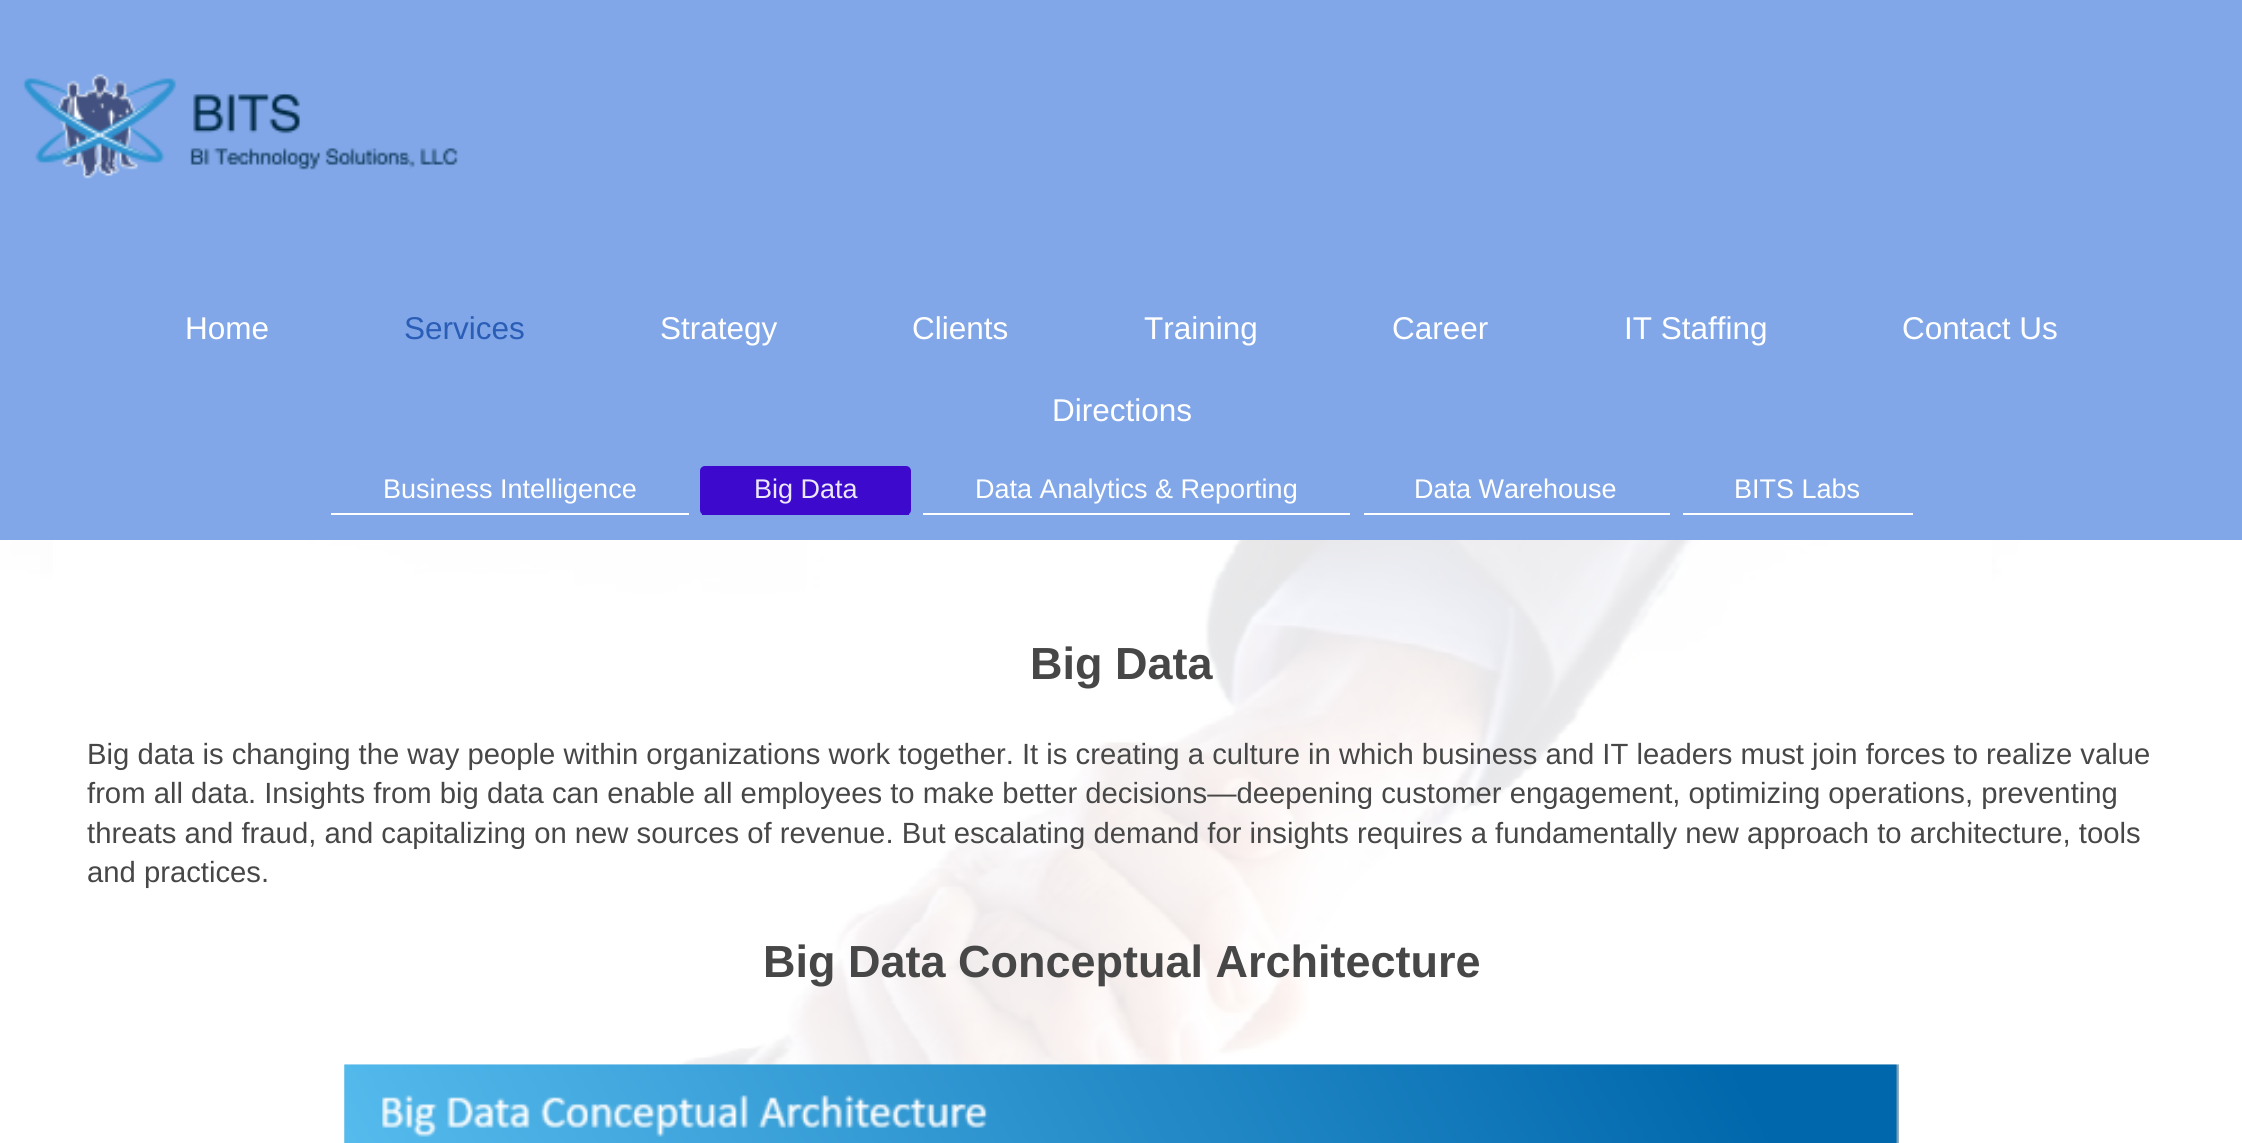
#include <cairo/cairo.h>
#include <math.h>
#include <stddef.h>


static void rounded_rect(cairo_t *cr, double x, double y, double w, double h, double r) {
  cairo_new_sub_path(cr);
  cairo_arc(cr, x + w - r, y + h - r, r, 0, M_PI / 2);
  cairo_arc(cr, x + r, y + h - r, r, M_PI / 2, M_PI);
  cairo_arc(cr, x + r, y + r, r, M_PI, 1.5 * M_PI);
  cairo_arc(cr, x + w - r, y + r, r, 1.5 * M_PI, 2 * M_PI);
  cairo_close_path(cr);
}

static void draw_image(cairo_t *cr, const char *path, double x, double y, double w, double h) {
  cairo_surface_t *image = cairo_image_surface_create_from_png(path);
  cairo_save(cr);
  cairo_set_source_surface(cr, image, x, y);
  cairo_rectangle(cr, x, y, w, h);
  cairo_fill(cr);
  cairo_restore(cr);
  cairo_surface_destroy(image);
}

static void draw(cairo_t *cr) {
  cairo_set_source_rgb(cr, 1, 1, 1);
  cairo_paint(cr);
  draw_image(cr, "images/1.png", 0, 540, 2242, 603);
  cairo_set_source_rgb(cr, 129 / 255.0, 167 / 255.0, 232 / 255.0);
  cairo_rectangle(cr, 0, 0, 2242, 540);
  cairo_fill(cr);
  draw_image(cr, "images/2.png", 22, 73, 436, 106);
  cairo_set_source_rgb(cr, 1, 1, 1);
  cairo_rectangle(cr, 331, 513, 358, 2);
  cairo_fill(cr);
  cairo_set_source_rgb(cr, 61 / 255.0, 10 / 255.0, 205 / 255.0);
  rounded_rect(cr, 700, 466, 211, 49, 5);
  cairo_fill(cr);
  cairo_rectangle(cr, 702, 514, 207, 1);
  cairo_fill(cr);
  cairo_set_source_rgb(cr, 1, 1, 1);
  cairo_rectangle(cr, 923, 513, 427, 2);
  cairo_fill(cr);
  cairo_rectangle(cr, 1364, 513, 306, 2);
  cairo_fill(cr);
  cairo_rectangle(cr, 1683, 513, 230, 2);
  cairo_fill(cr);
  cairo_set_source_rgba(cr, 1, 1, 1, 0.9);
  cairo_rectangle(cr, 53, 540, 1939, 603);
  cairo_fill(cr);
  draw_image(cr, "images/3.png", 344, 1064, 1555, 79);
  cairo_select_font_face(cr, "Liberation Sans", CAIRO_FONT_SLANT_NORMAL, CAIRO_FONT_WEIGHT_NORMAL);
  cairo_set_font_size(cr, 31.5);
  cairo_set_source_rgb(cr, 1, 1, 1);
  cairo_move_to(cr, 185, 339);
  cairo_show_text(cr, "Home");
  cairo_set_source_rgb(cr, 42 / 255.0, 93 / 255.0, 182 / 255.0);
  cairo_move_to(cr, 404, 339);
  cairo_show_text(cr, "Services");
  cairo_set_source_rgb(cr, 1, 1, 1);
  cairo_move_to(cr, 660, 339);
  cairo_show_text(cr, "Strategy");
  cairo_move_to(cr, 912, 339);
  cairo_show_text(cr, "Clients");
  cairo_move_to(cr, 1144, 339);
  cairo_show_text(cr, "Training");
  cairo_move_to(cr, 1392, 339);
  cairo_show_text(cr, "Career");
  cairo_move_to(cr, 1624, 339);
  cairo_show_text(cr, "IT Staffing");
  cairo_move_to(cr, 1902, 339);
  cairo_show_text(cr, "Contact Us");
  cairo_move_to(cr, 1052, 421);
  cairo_show_text(cr, "Directions");
  cairo_set_font_size(cr, 27);
  cairo_move_to(cr, 383, 498);
  cairo_show_text(cr, "Business Intelligence");
  cairo_set_source_rgb(cr, 236 / 255.0, 231 / 255.0, 250 / 255.0);
  cairo_move_to(cr, 754, 498);
  cairo_show_text(cr, "Big Data");
  cairo_set_source_rgb(cr, 1, 1, 1);
  cairo_move_to(cr, 975, 498);
  cairo_show_text(cr, "Data Analytics & Reporting");
  cairo_move_to(cr, 1414, 498);
  cairo_show_text(cr, "Data Warehouse");
  cairo_move_to(cr, 1734, 498);
  cairo_show_text(cr, "BITS Labs");
  cairo_select_font_face(cr, "Liberation Sans", CAIRO_FONT_SLANT_NORMAL, CAIRO_FONT_WEIGHT_BOLD);
  cairo_set_font_size(cr, 45);
  cairo_set_source_rgb(cr, 71 / 255.0, 71 / 255.0, 71 / 255.0);
  cairo_move_to(cr, 1030, 679);
  cairo_show_text(cr, "Big Data");
  cairo_select_font_face(cr, "Liberation Sans", CAIRO_FONT_SLANT_NORMAL, CAIRO_FONT_WEIGHT_NORMAL);
  cairo_set_font_size(cr, 29.25);
  cairo_move_to(cr, 87, 764);
  cairo_show_text(cr, "Big data is changing the way people within organizations work together. It is creating a culture in which business and IT leaders must join forces to realize value");
  cairo_move_to(cr, 87, 803);
  cairo_show_text(cr, "from all data. Insights from big data can enable all employees to make better decisions—deepening customer engagement, optimizing operations, preventing");
  cairo_move_to(cr, 87, 843);
  cairo_show_text(cr, "threats and fraud, and capitalizing on new sources of revenue. But escalating demand for insights requires a fundamentally new approach to architecture, tools");
  cairo_move_to(cr, 87, 882);
  cairo_show_text(cr, "and practices.");
  cairo_select_font_face(cr, "Liberation Sans", CAIRO_FONT_SLANT_NORMAL, CAIRO_FONT_WEIGHT_BOLD);
  cairo_set_font_size(cr, 45);
  cairo_move_to(cr, 763, 977);
  cairo_show_text(cr, "Big Data Conceptual Architecture");
}

int main(void) {
  cairo_surface_t *surface = cairo_image_surface_create(CAIRO_FORMAT_RGB24, 2242, 1143);
  cairo_t *cr = cairo_create(surface);
  cairo_font_options_t *options = cairo_font_options_create();
  cairo_font_options_set_hint_metrics(options, CAIRO_HINT_METRICS_OFF);
  cairo_font_options_set_hint_style(options, CAIRO_HINT_STYLE_NONE);
  cairo_set_font_options(cr, options);
  cairo_set_miter_limit(cr, 4);
  draw(cr);
  cairo_surface_write_to_png(surface, "out.png");
  cairo_font_options_destroy(options);
  cairo_destroy(cr);
  cairo_surface_destroy(surface);
  return 0;
}
